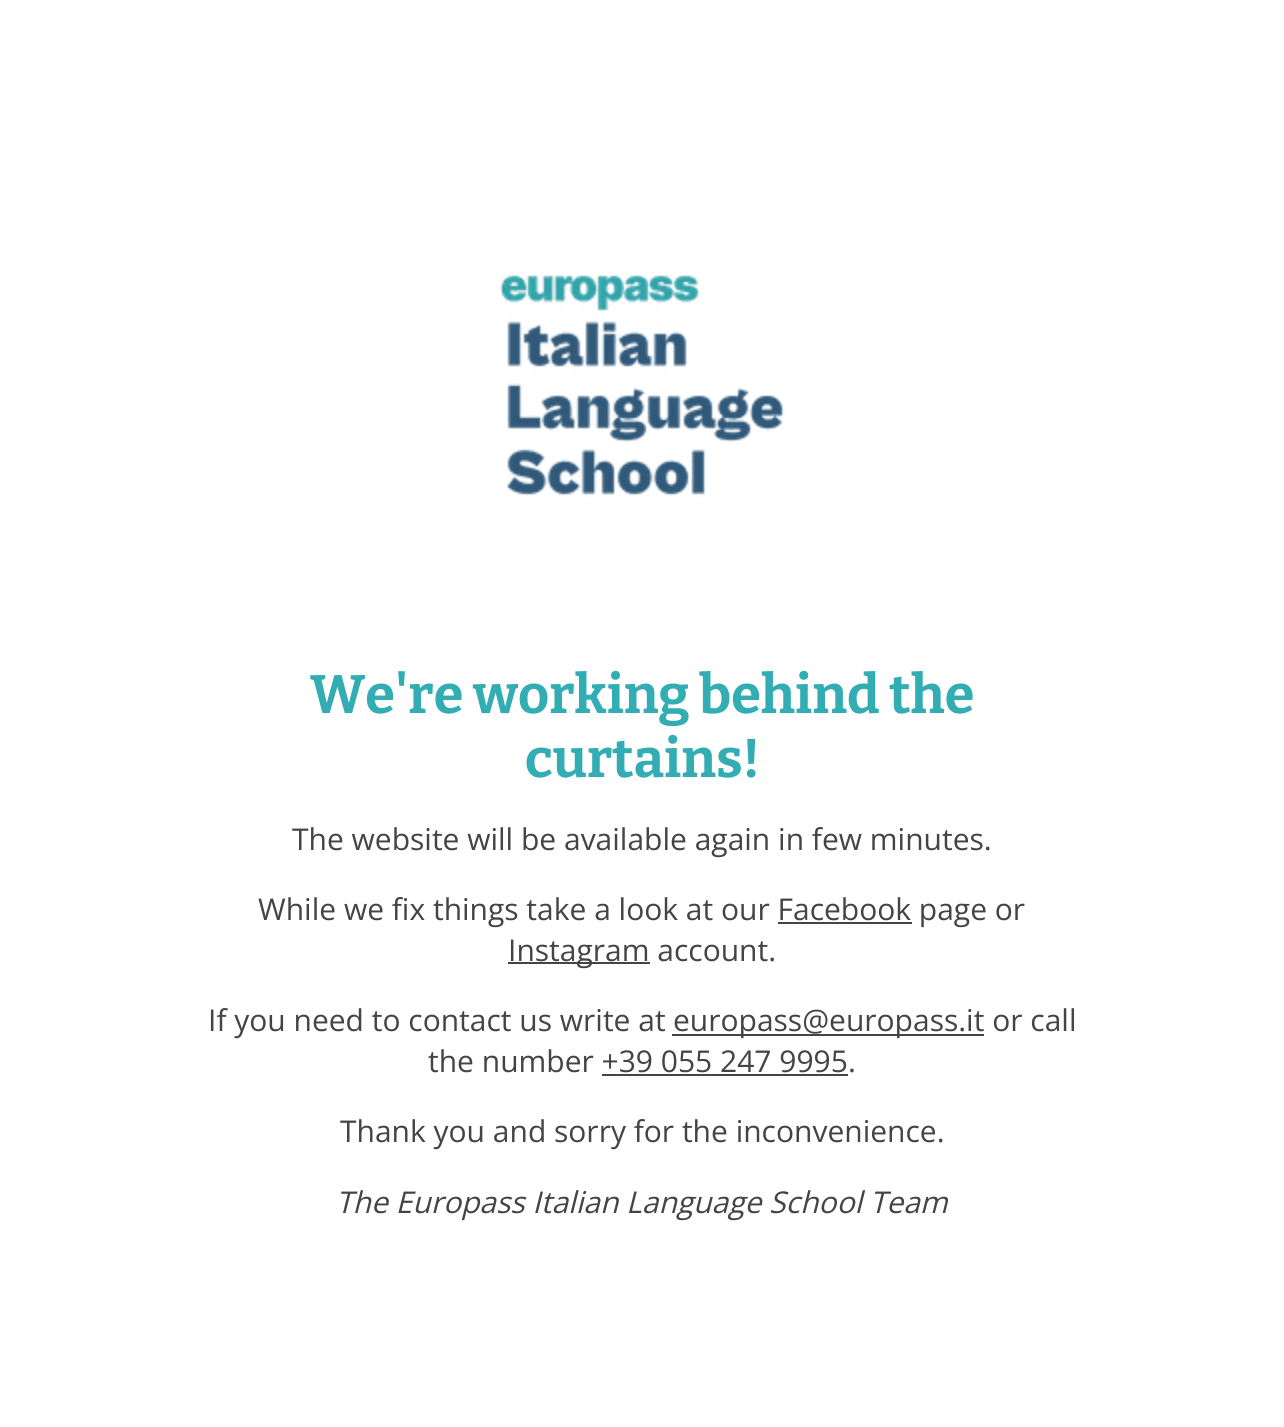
#include <cairo/cairo.h>
#include <math.h>
#include <stddef.h>


static void draw_image(cairo_t *cr, const char *path, double x, double y, double w, double h) {
  cairo_surface_t *image = cairo_image_surface_create_from_png(path);
  cairo_save(cr);
  cairo_set_source_surface(cr, image, x, y);
  cairo_rectangle(cr, x, y, w, h);
  cairo_fill(cr);
  cairo_restore(cr);
  cairo_surface_destroy(image);
}

static void draw(cairo_t *cr) {
  cairo_set_source_rgb(cr, 1, 1, 1);
  cairo_paint(cr);
  draw_image(cr, "images/1.png", 499, 274, 286, 224);
  cairo_set_source_rgb(cr, 68 / 255.0, 68 / 255.0, 68 / 255.0);
  cairo_rectangle(cr, 778, 922, 134, 2);
  cairo_fill(cr);
  cairo_rectangle(cr, 508, 962, 142, 2);
  cairo_fill(cr);
  cairo_rectangle(cr, 672, 1034, 312, 2);
  cairo_fill(cr);
  cairo_rectangle(cr, 602, 1074, 246, 2);
  cairo_fill(cr);
  cairo_select_font_face(cr, "Bitter Thin", CAIRO_FONT_SLANT_NORMAL, CAIRO_FONT_WEIGHT_NORMAL);
  cairo_set_font_size(cr, 54);
  cairo_set_source_rgb(cr, 49 / 255.0, 173 / 255.0, 179 / 255.0);
  cairo_move_to(cr, 310, 713);
  cairo_show_text(cr, "We're working behind the");
  cairo_move_to(cr, 525, 777);
  cairo_show_text(cr, "curtains!");
  cairo_select_font_face(cr, "Open Sans", CAIRO_FONT_SLANT_NORMAL, CAIRO_FONT_WEIGHT_NORMAL);
  cairo_set_font_size(cr, 30);
  cairo_set_source_rgb(cr, 68 / 255.0, 68 / 255.0, 68 / 255.0);
  cairo_move_to(cr, 292, 850);
  cairo_show_text(cr, "The website will be available again in few minutes.");
  cairo_move_to(cr, 258, 920);
  cairo_show_text(cr, "While we fix things take a look at our Facebook page or");
  cairo_move_to(cr, 508, 961);
  cairo_show_text(cr, "Instagram account.");
  cairo_move_to(cr, 208, 1031);
  cairo_show_text(cr, "If you need to contact us write at");
  cairo_move_to(cr, 673, 1031);
  cairo_show_text(cr, "europass@europass.it or call");
  cairo_move_to(cr, 428, 1072);
  cairo_show_text(cr, "the number +39 055 247 9995.");
  cairo_move_to(cr, 340, 1142);
  cairo_show_text(cr, "Thank you and sorry for the inconvenience.");
  cairo_select_font_face(cr, "Open Sans", CAIRO_FONT_SLANT_ITALIC, CAIRO_FONT_WEIGHT_NORMAL);
  cairo_move_to(cr, 336, 1213);
  cairo_show_text(cr, "The Europass Italian Language School Team");
}

int main(void) {
  cairo_surface_t *surface = cairo_image_surface_create(CAIRO_FORMAT_RGB24, 1284, 1427);
  cairo_t *cr = cairo_create(surface);
  cairo_font_options_t *options = cairo_font_options_create();
  cairo_font_options_set_hint_metrics(options, CAIRO_HINT_METRICS_OFF);
  cairo_font_options_set_hint_style(options, CAIRO_HINT_STYLE_NONE);
  cairo_set_font_options(cr, options);
  cairo_set_miter_limit(cr, 4);
  draw(cr);
  cairo_surface_write_to_png(surface, "out.png");
  cairo_font_options_destroy(options);
  cairo_destroy(cr);
  cairo_surface_destroy(surface);
  return 0;
}
